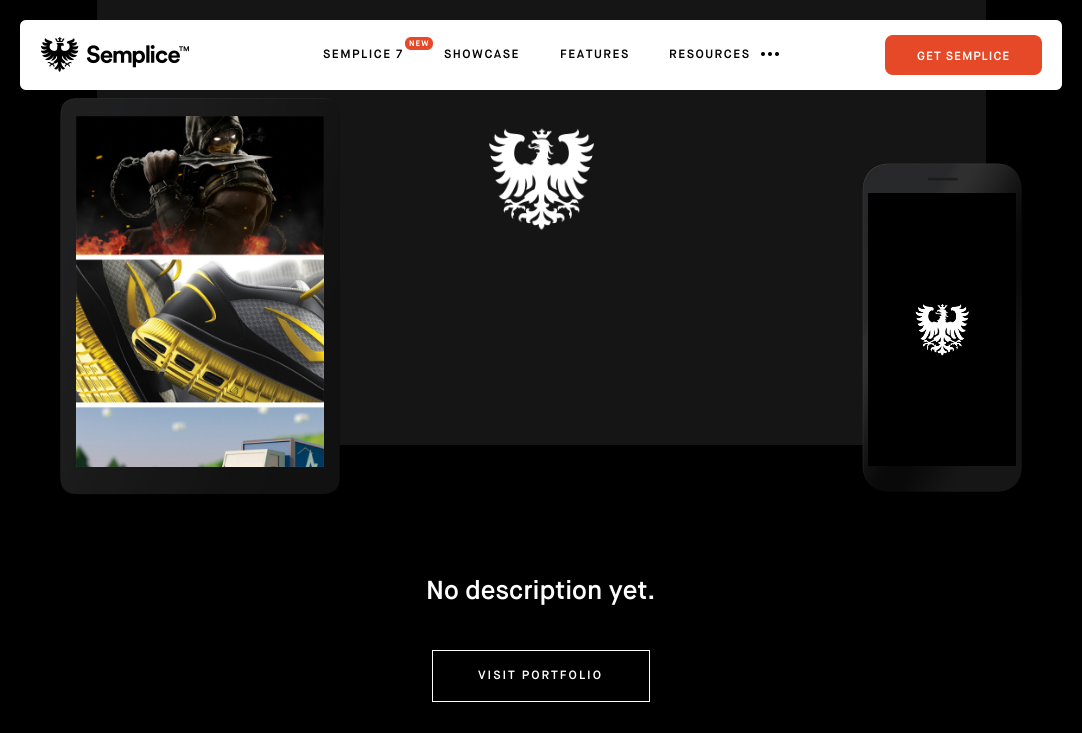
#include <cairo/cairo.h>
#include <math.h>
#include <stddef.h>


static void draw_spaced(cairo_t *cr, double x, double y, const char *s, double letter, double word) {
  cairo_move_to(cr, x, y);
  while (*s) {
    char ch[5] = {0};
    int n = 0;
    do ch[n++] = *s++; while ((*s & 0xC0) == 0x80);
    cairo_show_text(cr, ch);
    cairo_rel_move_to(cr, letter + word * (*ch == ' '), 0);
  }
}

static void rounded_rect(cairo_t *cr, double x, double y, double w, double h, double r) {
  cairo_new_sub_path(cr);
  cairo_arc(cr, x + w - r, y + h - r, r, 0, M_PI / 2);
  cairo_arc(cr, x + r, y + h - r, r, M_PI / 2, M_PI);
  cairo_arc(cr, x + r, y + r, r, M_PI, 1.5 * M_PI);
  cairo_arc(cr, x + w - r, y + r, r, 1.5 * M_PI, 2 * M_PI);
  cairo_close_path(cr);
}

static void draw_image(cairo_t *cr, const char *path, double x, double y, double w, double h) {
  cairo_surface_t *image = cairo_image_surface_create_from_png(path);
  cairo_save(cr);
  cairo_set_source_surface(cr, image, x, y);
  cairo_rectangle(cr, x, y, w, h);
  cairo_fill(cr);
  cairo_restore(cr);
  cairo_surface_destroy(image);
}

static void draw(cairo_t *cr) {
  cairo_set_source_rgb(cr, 0, 0, 0);
  cairo_paint(cr);
  draw_image(cr, "images/2.png", 97, 0, 889, 445);
  cairo_set_source_rgb(cr, 1, 1, 1);
  rounded_rect(cr, 20, 20, 1042, 70, 6);
  cairo_fill(cr);
  draw_image(cr, "images/1.png", 41, 37, 148, 35);
  cairo_set_source_rgb(cr, 229 / 255.0, 73 / 255.0, 39 / 255.0);
  rounded_rect(cr, 405, 37, 28, 13, 6);
  cairo_fill(cr);
  cairo_set_source_rgb(cr, 0, 0, 0);
  cairo_arc(cr, 763, 54, 2, 0, 2 * M_PI);
  cairo_fill(cr);
  cairo_arc(cr, 770, 54, 2, 0, 2 * M_PI);
  cairo_fill(cr);
  cairo_arc(cr, 777, 54, 2, 0, 2 * M_PI);
  cairo_fill(cr);
  cairo_set_source_rgb(cr, 229 / 255.0, 73 / 255.0, 39 / 255.0);
  rounded_rect(cr, 885, 35, 157, 40, 8);
  cairo_fill(cr);
  draw_image(cr, "images/3.png", 60, 98, 280, 397);
  draw_image(cr, "images/4.png", 76, 116, 248, 351);
  draw_image(cr, "images/5.png", 862, 163, 160, 329);
  draw_image(cr, "images/6.png", 868, 193, 148, 273);
  cairo_rectangle(cr, 432.5, 650.5, 217, 51);
  cairo_set_source_rgb(cr, 1, 1, 1);
  cairo_set_line_width(cr, 1);
  cairo_stroke(cr);
  cairo_select_font_face(cr, "Maison Neue", CAIRO_FONT_SLANT_NORMAL, CAIRO_FONT_WEIGHT_BOLD);
  cairo_set_font_size(cr, 8);
  draw_spaced(cr, 409, 46, "NEW", 1, 0);
  cairo_select_font_face(cr, "Maison Neue SemiBold", CAIRO_FONT_SLANT_NORMAL, CAIRO_FONT_WEIGHT_NORMAL);
  cairo_set_font_size(cr, 12);
  cairo_set_source_rgb(cr, 0, 0, 0);
  draw_spaced(cr, 323, 58, "SEMPLICE 7", 1.5, 0);
  draw_spaced(cr, 444, 58, "SHOWCASE", 1.5, 0);
  draw_spaced(cr, 560, 58, "FEATURES", 1.5, 0);
  draw_spaced(cr, 669, 58, "RESOURCES", 1.5, 0);
  cairo_set_source_rgb(cr, 1, 1, 1);
  draw_spaced(cr, 917, 60, "GET SEMPLICE", 1, 0);
  cairo_set_font_size(cr, 26);
  cairo_move_to(cr, 426, 599);
  cairo_show_text(cr, "No description yet.");
  cairo_set_font_size(cr, 12);
  draw_spaced(cr, 478, 679, "VISIT PORTFOLIO", 2, 0);
}

int main(void) {
  cairo_surface_t *surface = cairo_image_surface_create(CAIRO_FORMAT_RGB24, 1082, 733);
  cairo_t *cr = cairo_create(surface);
  cairo_font_options_t *options = cairo_font_options_create();
  cairo_font_options_set_hint_metrics(options, CAIRO_HINT_METRICS_OFF);
  cairo_font_options_set_hint_style(options, CAIRO_HINT_STYLE_NONE);
  cairo_set_font_options(cr, options);
  cairo_set_miter_limit(cr, 4);
  draw(cr);
  cairo_surface_write_to_png(surface, "out.png");
  cairo_font_options_destroy(options);
  cairo_destroy(cr);
  cairo_surface_destroy(surface);
  return 0;
}
